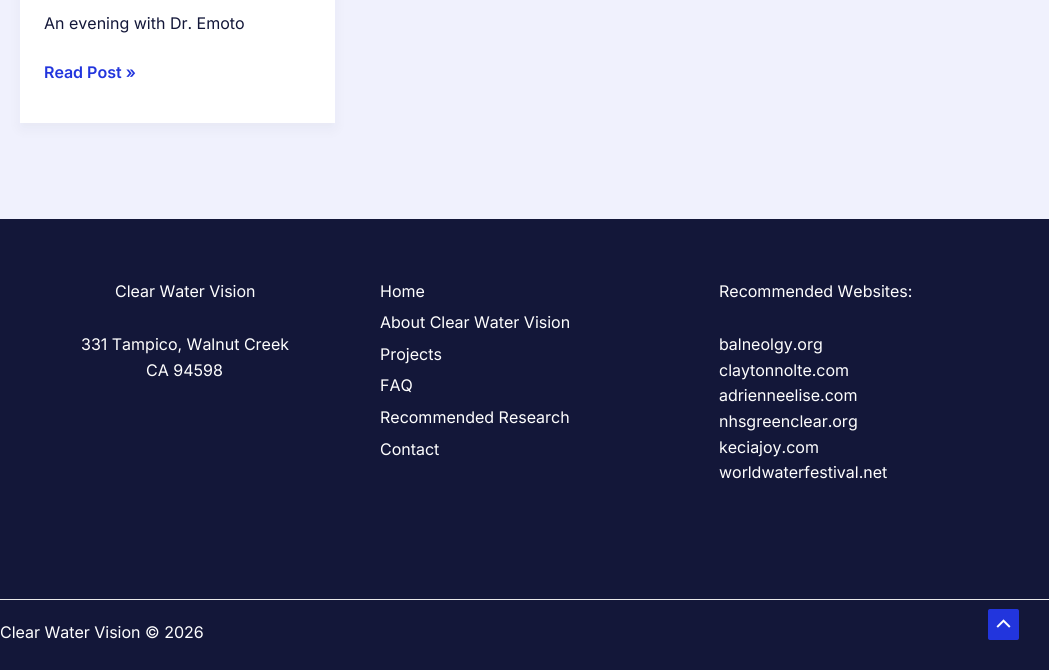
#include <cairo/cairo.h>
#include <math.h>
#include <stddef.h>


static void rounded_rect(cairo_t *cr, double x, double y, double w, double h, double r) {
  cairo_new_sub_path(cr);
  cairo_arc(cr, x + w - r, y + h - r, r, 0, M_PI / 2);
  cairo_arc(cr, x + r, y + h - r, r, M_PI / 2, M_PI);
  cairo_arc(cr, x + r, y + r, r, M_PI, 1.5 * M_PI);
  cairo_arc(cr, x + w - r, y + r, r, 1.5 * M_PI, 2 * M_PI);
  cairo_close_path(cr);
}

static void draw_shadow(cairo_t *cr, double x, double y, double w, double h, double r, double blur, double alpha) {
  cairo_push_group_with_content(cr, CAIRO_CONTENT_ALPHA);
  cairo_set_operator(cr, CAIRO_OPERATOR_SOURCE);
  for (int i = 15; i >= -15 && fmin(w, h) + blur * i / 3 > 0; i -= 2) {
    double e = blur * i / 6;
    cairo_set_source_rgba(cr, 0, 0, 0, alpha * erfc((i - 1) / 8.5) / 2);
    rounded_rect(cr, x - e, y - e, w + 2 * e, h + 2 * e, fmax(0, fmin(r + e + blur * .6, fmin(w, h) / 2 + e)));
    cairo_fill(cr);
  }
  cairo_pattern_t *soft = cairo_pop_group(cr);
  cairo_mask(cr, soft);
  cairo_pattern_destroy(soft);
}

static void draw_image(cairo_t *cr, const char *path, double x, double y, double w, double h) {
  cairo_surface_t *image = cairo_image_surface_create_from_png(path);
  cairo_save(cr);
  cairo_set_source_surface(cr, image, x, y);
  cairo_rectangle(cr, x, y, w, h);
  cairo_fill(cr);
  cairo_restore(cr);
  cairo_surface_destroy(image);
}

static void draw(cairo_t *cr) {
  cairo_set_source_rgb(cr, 240 / 255.0, 241 / 255.0, 253 / 255.0);
  cairo_paint(cr);
  cairo_set_source_rgb(cr, 16 / 255.0, 24 / 255.0, 40 / 255.0);
  draw_shadow(cr, 22, -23, 311, 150, 0, 7.5, 0.05);
  cairo_set_source_rgb(cr, 1, 1, 1);
  cairo_rectangle(cr, 20, 0, 315, 123);
  cairo_fill(cr);
  cairo_set_source_rgb(cr, 19 / 255.0, 23 / 255.0, 57 / 255.0);
  cairo_rectangle(cr, 0, 219, 1049, 380);
  cairo_fill(cr);
  cairo_rectangle(cr, 0, 600, 1049, 70);
  cairo_fill(cr);
  cairo_set_source_rgb(cr, 234 / 255.0, 234 / 255.0, 234 / 255.0);
  cairo_rectangle(cr, 0, 599, 1049, 1);
  cairo_fill(cr);
  cairo_set_source_rgb(cr, 34 / 255.0, 53 / 255.0, 221 / 255.0);
  rounded_rect(cr, 988, 609, 31, 31, 2);
  cairo_fill(cr);
  draw_image(cr, "images/1.png", 996, 619, 15, 9);
  cairo_select_font_face(cr, "Inter", CAIRO_FONT_SLANT_NORMAL, CAIRO_FONT_WEIGHT_NORMAL);
  cairo_set_font_size(cr, 16);
  cairo_set_source_rgb(cr, 19 / 255.0, 23 / 255.0, 57 / 255.0);
  cairo_move_to(cr, 44, 29);
  cairo_show_text(cr, "An evening with Dr. Emoto");
  cairo_select_font_face(cr, "Inter SemiBold", CAIRO_FONT_SLANT_NORMAL, CAIRO_FONT_WEIGHT_NORMAL);
  cairo_set_source_rgb(cr, 34 / 255.0, 53 / 255.0, 221 / 255.0);
  cairo_move_to(cr, 44, 78);
  cairo_show_text(cr, "Read Post »");
  cairo_select_font_face(cr, "Inter", CAIRO_FONT_SLANT_NORMAL, CAIRO_FONT_WEIGHT_NORMAL);
  cairo_set_source_rgb(cr, 254 / 255.0, 254 / 255.0, 254 / 255.0);
  cairo_move_to(cr, 115, 297);
  cairo_show_text(cr, "Clear Water Vision");
  cairo_move_to(cr, 81, 350);
  cairo_show_text(cr, "331 Tampico, Walnut Creek");
  cairo_move_to(cr, 146, 376);
  cairo_show_text(cr, "CA 94598");
  cairo_move_to(cr, 380, 297);
  cairo_show_text(cr, "Home");
  cairo_move_to(cr, 380, 328);
  cairo_show_text(cr, "About Clear Water Vision");
  cairo_move_to(cr, 380, 360);
  cairo_show_text(cr, "Projects");
  cairo_move_to(cr, 380, 391);
  cairo_show_text(cr, "FAQ");
  cairo_move_to(cr, 380, 423);
  cairo_show_text(cr, "Recommended Research");
  cairo_move_to(cr, 380, 455);
  cairo_show_text(cr, "Contact");
  cairo_move_to(cr, 719, 297);
  cairo_show_text(cr, "Recommended Websites:");
  cairo_move_to(cr, 719, 350);
  cairo_show_text(cr, "balneolgy.org");
  cairo_move_to(cr, 719, 376);
  cairo_show_text(cr, "claytonnolte.com");
  cairo_move_to(cr, 719, 401);
  cairo_show_text(cr, "adrienneelise.com");
  cairo_move_to(cr, 719, 427);
  cairo_show_text(cr, "nhsgreenclear.org");
  cairo_move_to(cr, 719, 453);
  cairo_show_text(cr, "keciajoy.com");
  cairo_move_to(cr, 719, 478);
  cairo_show_text(cr, "worldwaterfestival.net");
  cairo_move_to(cr, 0, 638);
  cairo_show_text(cr, "Clear Water Vision © 2026");
}

int main(void) {
  cairo_surface_t *surface = cairo_image_surface_create(CAIRO_FORMAT_RGB24, 1049, 670);
  cairo_t *cr = cairo_create(surface);
  cairo_font_options_t *options = cairo_font_options_create();
  cairo_font_options_set_hint_metrics(options, CAIRO_HINT_METRICS_OFF);
  cairo_font_options_set_hint_style(options, CAIRO_HINT_STYLE_NONE);
  cairo_set_font_options(cr, options);
  cairo_set_miter_limit(cr, 4);
  draw(cr);
  cairo_surface_write_to_png(surface, "out.png");
  cairo_font_options_destroy(options);
  cairo_destroy(cr);
  cairo_surface_destroy(surface);
  return 0;
}
